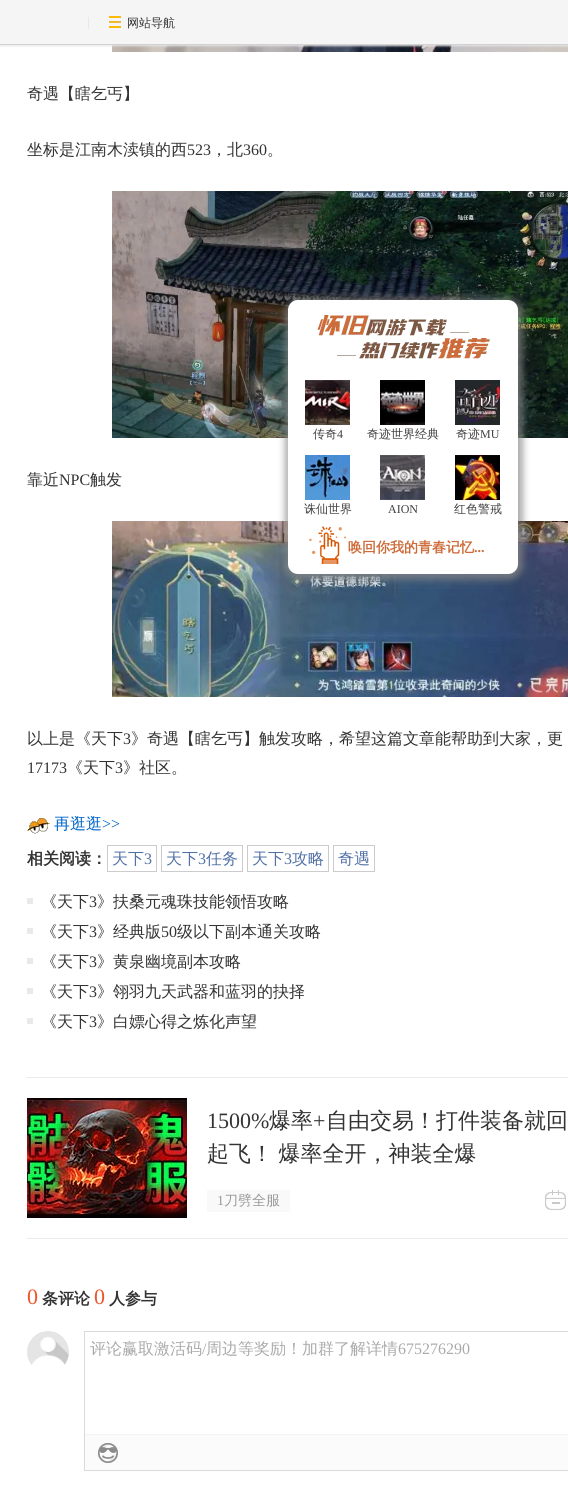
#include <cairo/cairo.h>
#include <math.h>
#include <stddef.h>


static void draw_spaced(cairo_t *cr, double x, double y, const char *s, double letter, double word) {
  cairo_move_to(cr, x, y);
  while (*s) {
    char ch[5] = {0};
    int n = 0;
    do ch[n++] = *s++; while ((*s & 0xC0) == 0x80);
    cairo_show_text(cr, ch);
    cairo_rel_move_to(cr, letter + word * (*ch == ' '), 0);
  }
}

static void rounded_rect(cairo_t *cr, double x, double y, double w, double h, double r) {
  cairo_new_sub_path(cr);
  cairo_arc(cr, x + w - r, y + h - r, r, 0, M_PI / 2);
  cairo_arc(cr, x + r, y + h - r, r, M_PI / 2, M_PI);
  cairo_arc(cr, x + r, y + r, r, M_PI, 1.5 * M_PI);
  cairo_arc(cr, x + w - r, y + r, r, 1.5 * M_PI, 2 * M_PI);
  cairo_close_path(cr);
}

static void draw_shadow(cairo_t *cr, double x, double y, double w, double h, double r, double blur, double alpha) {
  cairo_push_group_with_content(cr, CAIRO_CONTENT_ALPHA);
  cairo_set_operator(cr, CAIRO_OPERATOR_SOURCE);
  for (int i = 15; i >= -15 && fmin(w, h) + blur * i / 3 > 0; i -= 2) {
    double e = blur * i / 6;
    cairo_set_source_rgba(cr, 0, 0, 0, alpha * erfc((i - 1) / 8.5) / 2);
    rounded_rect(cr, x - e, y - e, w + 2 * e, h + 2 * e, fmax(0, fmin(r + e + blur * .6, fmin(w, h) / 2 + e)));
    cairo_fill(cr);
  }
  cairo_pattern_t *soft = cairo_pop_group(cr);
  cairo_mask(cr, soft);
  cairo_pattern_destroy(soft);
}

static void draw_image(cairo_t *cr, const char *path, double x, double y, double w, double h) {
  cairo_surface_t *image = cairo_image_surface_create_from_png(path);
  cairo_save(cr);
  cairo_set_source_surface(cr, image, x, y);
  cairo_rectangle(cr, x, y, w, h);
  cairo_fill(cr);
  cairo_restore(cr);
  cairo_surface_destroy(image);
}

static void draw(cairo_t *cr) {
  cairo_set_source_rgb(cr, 1, 1, 1);
  cairo_paint(cr);
  draw_image(cr, "images/2.png", 112, 45, 456, 7);
  cairo_set_source_rgb(cr, 232 / 255.0, 230 / 255.0, 230 / 255.0);
  draw_shadow(cr, 0, 1, 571, 45, 0, 1, 1);
  cairo_set_source_rgb(cr, 245 / 255.0, 245 / 255.0, 245 / 255.0);
  cairo_rectangle(cr, 0, 0, 568, 44);
  cairo_fill(cr);
  cairo_set_source_rgb(cr, 210 / 255.0, 210 / 255.0, 210 / 255.0);
  cairo_rectangle(cr, 0, 44, 568, 1);
  cairo_fill(cr);
  cairo_set_source_rgb(cr, 232 / 255.0, 232 / 255.0, 232 / 255.0);
  cairo_rectangle(cr, 88, 17, 1, 12);
  cairo_fill(cr);
  draw_image(cr, "images/1.png", 109, 16, 12, 12);
  draw_image(cr, "images/3.png", 112, 191, 456, 247);
  draw_image(cr, "images/4.png", 112, 521, 456, 176);
  draw_image(cr, "images/5.png", 27, 818, 23, 16);
  cairo_rectangle(cr, 107.5, 845.5, 49, 26);
  cairo_set_source_rgb(cr, 204 / 255.0, 204 / 255.0, 204 / 255.0);
  cairo_set_line_width(cr, 1);
  cairo_stroke(cr);
  cairo_rectangle(cr, 161.5, 845.5, 81, 26);
  cairo_stroke(cr);
  cairo_rectangle(cr, 247.5, 845.5, 81, 26);
  cairo_stroke(cr);
  cairo_rectangle(cr, 333.5, 845.5, 41, 26);
  cairo_stroke(cr);
  cairo_set_source_rgb(cr, 233 / 255.0, 233 / 255.0, 231 / 255.0);
  cairo_rectangle(cr, 27, 898, 6, 6);
  cairo_fill(cr);
  cairo_rectangle(cr, 27, 928, 6, 6);
  cairo_fill(cr);
  cairo_rectangle(cr, 27, 958, 6, 6);
  cairo_fill(cr);
  cairo_rectangle(cr, 27, 988, 6, 6);
  cairo_fill(cr);
  cairo_rectangle(cr, 27, 1018, 6, 6);
  cairo_fill(cr);
  cairo_set_source_rgb(cr, 234 / 255.0, 234 / 255.0, 234 / 255.0);
  cairo_rectangle(cr, 27, 1077, 541, 1);
  cairo_fill(cr);
  cairo_rectangle(cr, 27, 1238, 541, 1);
  cairo_fill(cr);
  draw_image(cr, "images/6.png", 27, 1098, 160, 120);
  cairo_set_source_rgb(cr, 249 / 255.0, 249 / 255.0, 249 / 255.0);
  cairo_rectangle(cr, 207, 1190, 83, 22);
  cairo_fill(cr);
  draw_image(cr, "images/7.png", 545, 1190, 21, 20);
  draw_image(cr, "images/8.png", 27, 1331, 42, 34);
  cairo_rectangle(cr, 84.5, 1331.5, 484, 139);
  cairo_set_source_rgb(cr, 218 / 255.0, 218 / 255.0, 218 / 255.0);
  cairo_stroke(cr);
  cairo_set_source_rgb(cr, 251 / 255.0, 251 / 255.0, 251 / 255.0);
  cairo_rectangle(cr, 85, 1435, 483, 35);
  cairo_fill(cr);
  cairo_set_source_rgb(cr, 242 / 255.0, 242 / 255.0, 242 / 255.0);
  cairo_rectangle(cr, 85, 1434, 483, 1);
  cairo_fill(cr);
  draw_image(cr, "images/9.png", 98, 1443, 20, 20);
  cairo_set_source_rgb(cr, 136 / 255.0, 136 / 255.0, 136 / 255.0);
  draw_shadow(cr, 286, 299, 236, 280, 13, 4, 0.5);
  draw_shadow(cr, 286, 299, 236, 280, 13, 4, 0.5);
  cairo_set_source_rgb(cr, 1, 1, 1);
  rounded_rect(cr, 288, 300, 230, 274, 10);
  cairo_fill(cr);
  draw_image(cr, "images/10.png", 317, 315, 173, 44);
  draw_image(cr, "images/11.png", 305, 380, 45, 45);
  draw_image(cr, "images/12.png", 380, 380, 45, 45);
  draw_image(cr, "images/13.png", 455, 380, 45, 45);
  draw_image(cr, "images/14.png", 305, 455, 45, 45);
  draw_image(cr, "images/15.png", 380, 455, 45, 45);
  draw_image(cr, "images/16.png", 455, 455, 45, 45);
  draw_image(cr, "images/17.png", 309, 526, 37, 38);
  cairo_select_font_face(cr, "WenQuanYi Zen Hei Medium", CAIRO_FONT_SLANT_NORMAL, CAIRO_FONT_WEIGHT_NORMAL);
  cairo_set_font_size(cr, 12);
  cairo_set_source_rgb(cr, 51 / 255.0, 51 / 255.0, 51 / 255.0);
  cairo_move_to(cr, 127, 27);
  cairo_show_text(cr, "网站导航");
  cairo_set_font_size(cr, 16);
  cairo_move_to(cr, 27, 99);
  cairo_show_text(cr, "奇遇【瞎乞丐】");
  cairo_move_to(cr, 27, 155);
  cairo_show_text(cr, "坐标是江南木渎镇的西");
  cairo_select_font_face(cr, "Liberation Serif", CAIRO_FONT_SLANT_NORMAL, CAIRO_FONT_WEIGHT_NORMAL);
  cairo_move_to(cr, 187, 155);
  cairo_show_text(cr, "523");
  cairo_select_font_face(cr, "WenQuanYi Zen Hei Medium", CAIRO_FONT_SLANT_NORMAL, CAIRO_FONT_WEIGHT_NORMAL);
  cairo_move_to(cr, 211, 155);
  cairo_show_text(cr, "，北");
  cairo_select_font_face(cr, "Liberation Serif", CAIRO_FONT_SLANT_NORMAL, CAIRO_FONT_WEIGHT_NORMAL);
  cairo_move_to(cr, 243, 155);
  cairo_show_text(cr, "360");
  cairo_select_font_face(cr, "WenQuanYi Zen Hei Medium", CAIRO_FONT_SLANT_NORMAL, CAIRO_FONT_WEIGHT_NORMAL);
  cairo_move_to(cr, 267, 155);
  cairo_show_text(cr, "。");
  cairo_move_to(cr, 27, 485);
  cairo_show_text(cr, "靠近");
  cairo_select_font_face(cr, "Liberation Serif", CAIRO_FONT_SLANT_NORMAL, CAIRO_FONT_WEIGHT_NORMAL);
  cairo_move_to(cr, 59, 485);
  cairo_show_text(cr, "NPC");
  cairo_select_font_face(cr, "WenQuanYi Zen Hei Medium", CAIRO_FONT_SLANT_NORMAL, CAIRO_FONT_WEIGHT_NORMAL);
  cairo_move_to(cr, 90, 485);
  cairo_show_text(cr, "触发");
  cairo_move_to(cr, 27, 744);
  cairo_show_text(cr, "以上是《天下");
  cairo_select_font_face(cr, "Liberation Serif", CAIRO_FONT_SLANT_NORMAL, CAIRO_FONT_WEIGHT_NORMAL);
  cairo_move_to(cr, 123, 744);
  cairo_show_text(cr, "3");
  cairo_select_font_face(cr, "WenQuanYi Zen Hei Medium", CAIRO_FONT_SLANT_NORMAL, CAIRO_FONT_WEIGHT_NORMAL);
  cairo_move_to(cr, 131, 744);
  cairo_show_text(cr, "》奇遇【瞎乞丐】触发攻略，希望这篇文章能帮助到大家，更");
  cairo_select_font_face(cr, "Liberation Serif", CAIRO_FONT_SLANT_NORMAL, CAIRO_FONT_WEIGHT_NORMAL);
  cairo_move_to(cr, 27, 773);
  cairo_show_text(cr, "17173");
  cairo_select_font_face(cr, "WenQuanYi Zen Hei Medium", CAIRO_FONT_SLANT_NORMAL, CAIRO_FONT_WEIGHT_NORMAL);
  cairo_move_to(cr, 67, 773);
  cairo_show_text(cr, "《天下");
  cairo_select_font_face(cr, "Liberation Serif", CAIRO_FONT_SLANT_NORMAL, CAIRO_FONT_WEIGHT_NORMAL);
  cairo_move_to(cr, 115, 773);
  cairo_show_text(cr, "3");
  cairo_select_font_face(cr, "WenQuanYi Zen Hei Medium", CAIRO_FONT_SLANT_NORMAL, CAIRO_FONT_WEIGHT_NORMAL);
  cairo_move_to(cr, 123, 773);
  cairo_show_text(cr, "》社区。");
  cairo_set_source_rgb(cr, 0, 102 / 255.0, 204 / 255.0);
  cairo_move_to(cr, 54, 829);
  cairo_show_text(cr, "再逛逛");
  cairo_select_font_face(cr, "Liberation Serif", CAIRO_FONT_SLANT_NORMAL, CAIRO_FONT_WEIGHT_NORMAL);
  cairo_move_to(cr, 102, 829);
  cairo_show_text(cr, ">>");
  cairo_select_font_face(cr, "WenQuanYi Zen Hei", CAIRO_FONT_SLANT_NORMAL, CAIRO_FONT_WEIGHT_BOLD);
  cairo_set_source_rgb(cr, 51 / 255.0, 51 / 255.0, 51 / 255.0);
  cairo_move_to(cr, 27, 864);
  cairo_show_text(cr, "相关阅读：");
  cairo_select_font_face(cr, "WenQuanYi Zen Hei Medium", CAIRO_FONT_SLANT_NORMAL, CAIRO_FONT_WEIGHT_NORMAL);
  cairo_set_source_rgb(cr, 81 / 255.0, 112 / 255.0, 166 / 255.0);
  cairo_move_to(cr, 112, 864);
  cairo_show_text(cr, "天下");
  cairo_select_font_face(cr, "Liberation Serif", CAIRO_FONT_SLANT_NORMAL, CAIRO_FONT_WEIGHT_NORMAL);
  cairo_move_to(cr, 144, 864);
  cairo_show_text(cr, "3");
  cairo_select_font_face(cr, "WenQuanYi Zen Hei Medium", CAIRO_FONT_SLANT_NORMAL, CAIRO_FONT_WEIGHT_NORMAL);
  cairo_move_to(cr, 166, 864);
  cairo_show_text(cr, "天下");
  cairo_select_font_face(cr, "Liberation Serif", CAIRO_FONT_SLANT_NORMAL, CAIRO_FONT_WEIGHT_NORMAL);
  cairo_move_to(cr, 198, 864);
  cairo_show_text(cr, "3");
  cairo_select_font_face(cr, "WenQuanYi Zen Hei Medium", CAIRO_FONT_SLANT_NORMAL, CAIRO_FONT_WEIGHT_NORMAL);
  cairo_move_to(cr, 206, 864);
  cairo_show_text(cr, "任务");
  cairo_move_to(cr, 252, 864);
  cairo_show_text(cr, "天下");
  cairo_select_font_face(cr, "Liberation Serif", CAIRO_FONT_SLANT_NORMAL, CAIRO_FONT_WEIGHT_NORMAL);
  cairo_move_to(cr, 284, 864);
  cairo_show_text(cr, "3");
  cairo_select_font_face(cr, "WenQuanYi Zen Hei Medium", CAIRO_FONT_SLANT_NORMAL, CAIRO_FONT_WEIGHT_NORMAL);
  cairo_move_to(cr, 292, 864);
  cairo_show_text(cr, "攻略");
  cairo_move_to(cr, 338, 864);
  cairo_show_text(cr, "奇遇");
  cairo_set_source_rgb(cr, 51 / 255.0, 51 / 255.0, 51 / 255.0);
  cairo_move_to(cr, 41, 907);
  cairo_show_text(cr, "《天下");
  cairo_select_font_face(cr, "Liberation Serif", CAIRO_FONT_SLANT_NORMAL, CAIRO_FONT_WEIGHT_NORMAL);
  cairo_move_to(cr, 89, 907);
  cairo_show_text(cr, "3");
  cairo_select_font_face(cr, "WenQuanYi Zen Hei Medium", CAIRO_FONT_SLANT_NORMAL, CAIRO_FONT_WEIGHT_NORMAL);
  cairo_move_to(cr, 97, 907);
  cairo_show_text(cr, "》扶桑元魂珠技能领悟攻略");
  cairo_move_to(cr, 41, 937);
  cairo_show_text(cr, "《天下");
  cairo_select_font_face(cr, "Liberation Serif", CAIRO_FONT_SLANT_NORMAL, CAIRO_FONT_WEIGHT_NORMAL);
  cairo_move_to(cr, 89, 937);
  cairo_show_text(cr, "3");
  cairo_select_font_face(cr, "WenQuanYi Zen Hei Medium", CAIRO_FONT_SLANT_NORMAL, CAIRO_FONT_WEIGHT_NORMAL);
  cairo_move_to(cr, 97, 937);
  cairo_show_text(cr, "》经典版");
  cairo_select_font_face(cr, "Liberation Serif", CAIRO_FONT_SLANT_NORMAL, CAIRO_FONT_WEIGHT_NORMAL);
  cairo_move_to(cr, 161, 937);
  cairo_show_text(cr, "50");
  cairo_select_font_face(cr, "WenQuanYi Zen Hei Medium", CAIRO_FONT_SLANT_NORMAL, CAIRO_FONT_WEIGHT_NORMAL);
  cairo_move_to(cr, 177, 937);
  cairo_show_text(cr, "级以下副本通关攻略");
  cairo_move_to(cr, 41, 967);
  cairo_show_text(cr, "《天下");
  cairo_select_font_face(cr, "Liberation Serif", CAIRO_FONT_SLANT_NORMAL, CAIRO_FONT_WEIGHT_NORMAL);
  cairo_move_to(cr, 89, 967);
  cairo_show_text(cr, "3");
  cairo_select_font_face(cr, "WenQuanYi Zen Hei Medium", CAIRO_FONT_SLANT_NORMAL, CAIRO_FONT_WEIGHT_NORMAL);
  cairo_move_to(cr, 97, 967);
  cairo_show_text(cr, "》黄泉幽境副本攻略");
  cairo_move_to(cr, 41, 997);
  cairo_show_text(cr, "《天下");
  cairo_select_font_face(cr, "Liberation Serif", CAIRO_FONT_SLANT_NORMAL, CAIRO_FONT_WEIGHT_NORMAL);
  cairo_move_to(cr, 89, 997);
  cairo_show_text(cr, "3");
  cairo_select_font_face(cr, "WenQuanYi Zen Hei Medium", CAIRO_FONT_SLANT_NORMAL, CAIRO_FONT_WEIGHT_NORMAL);
  cairo_move_to(cr, 97, 997);
  cairo_show_text(cr, "》翎羽九天武器和蓝羽的抉择");
  cairo_move_to(cr, 41, 1027);
  cairo_show_text(cr, "《天下");
  cairo_select_font_face(cr, "Liberation Serif", CAIRO_FONT_SLANT_NORMAL, CAIRO_FONT_WEIGHT_NORMAL);
  cairo_move_to(cr, 89, 1027);
  cairo_show_text(cr, "3");
  cairo_select_font_face(cr, "WenQuanYi Zen Hei Medium", CAIRO_FONT_SLANT_NORMAL, CAIRO_FONT_WEIGHT_NORMAL);
  cairo_move_to(cr, 97, 1027);
  cairo_show_text(cr, "》白嫖心得之炼化声望");
  cairo_select_font_face(cr, "Liberation Serif", CAIRO_FONT_SLANT_NORMAL, CAIRO_FONT_WEIGHT_NORMAL);
  cairo_set_font_size(cr, 22);
  cairo_move_to(cr, 207, 1128);
  cairo_show_text(cr, "1500%");
  cairo_select_font_face(cr, "WenQuanYi Zen Hei Medium", CAIRO_FONT_SLANT_NORMAL, CAIRO_FONT_WEIGHT_NORMAL);
  cairo_move_to(cr, 269, 1128);
  cairo_show_text(cr, "爆率");
  cairo_select_font_face(cr, "Liberation Serif", CAIRO_FONT_SLANT_NORMAL, CAIRO_FONT_WEIGHT_NORMAL);
  cairo_move_to(cr, 313, 1128);
  cairo_show_text(cr, "+");
  cairo_select_font_face(cr, "WenQuanYi Zen Hei Medium", CAIRO_FONT_SLANT_NORMAL, CAIRO_FONT_WEIGHT_NORMAL);
  cairo_move_to(cr, 326, 1128);
  cairo_show_text(cr, "自由交易！打件装备就回");
  draw_spaced(cr, 207, 1161, "起飞！ 爆率全开，神装全爆", 0, -1);
  cairo_select_font_face(cr, "Liberation Serif", CAIRO_FONT_SLANT_NORMAL, CAIRO_FONT_WEIGHT_NORMAL);
  cairo_set_font_size(cr, 14);
  cairo_set_source_rgb(cr, 153 / 255.0, 153 / 255.0, 153 / 255.0);
  cairo_move_to(cr, 217, 1205);
  cairo_show_text(cr, "1");
  cairo_select_font_face(cr, "WenQuanYi Zen Hei Medium", CAIRO_FONT_SLANT_NORMAL, CAIRO_FONT_WEIGHT_NORMAL);
  cairo_move_to(cr, 224, 1205);
  cairo_show_text(cr, "刀劈全服");
  cairo_select_font_face(cr, "Liberation Serif", CAIRO_FONT_SLANT_NORMAL, CAIRO_FONT_WEIGHT_NORMAL);
  cairo_set_font_size(cr, 22);
  cairo_set_source_rgb(cr, 238 / 255.0, 84 / 255.0, 42 / 255.0);
  cairo_move_to(cr, 27, 1304);
  cairo_show_text(cr, "0");
  cairo_select_font_face(cr, "WenQuanYi Zen Hei", CAIRO_FONT_SLANT_NORMAL, CAIRO_FONT_WEIGHT_BOLD);
  cairo_set_font_size(cr, 16);
  cairo_set_source_rgb(cr, 51 / 255.0, 51 / 255.0, 51 / 255.0);
  cairo_move_to(cr, 42, 1304);
  cairo_show_text(cr, "条评论");
  cairo_select_font_face(cr, "Liberation Serif", CAIRO_FONT_SLANT_NORMAL, CAIRO_FONT_WEIGHT_NORMAL);
  cairo_set_font_size(cr, 22);
  cairo_set_source_rgb(cr, 238 / 255.0, 84 / 255.0, 42 / 255.0);
  cairo_move_to(cr, 94, 1304);
  cairo_show_text(cr, "0");
  cairo_select_font_face(cr, "WenQuanYi Zen Hei", CAIRO_FONT_SLANT_NORMAL, CAIRO_FONT_WEIGHT_BOLD);
  cairo_set_font_size(cr, 16);
  cairo_set_source_rgb(cr, 51 / 255.0, 51 / 255.0, 51 / 255.0);
  cairo_move_to(cr, 109, 1304);
  cairo_show_text(cr, "人参与");
  cairo_select_font_face(cr, "WenQuanYi Zen Hei Medium", CAIRO_FONT_SLANT_NORMAL, CAIRO_FONT_WEIGHT_NORMAL);
  cairo_set_source_rgb(cr, 170 / 255.0, 170 / 255.0, 170 / 255.0);
  cairo_move_to(cr, 90, 1354);
  cairo_show_text(cr, "评论赢取激活码");
  cairo_select_font_face(cr, "Liberation Serif", CAIRO_FONT_SLANT_NORMAL, CAIRO_FONT_WEIGHT_NORMAL);
  cairo_move_to(cr, 202, 1354);
  cairo_show_text(cr, "/");
  cairo_select_font_face(cr, "WenQuanYi Zen Hei Medium", CAIRO_FONT_SLANT_NORMAL, CAIRO_FONT_WEIGHT_NORMAL);
  cairo_move_to(cr, 206, 1354);
  cairo_show_text(cr, "周边等奖励！加群了解详情");
  cairo_select_font_face(cr, "Liberation Serif", CAIRO_FONT_SLANT_NORMAL, CAIRO_FONT_WEIGHT_NORMAL);
  cairo_move_to(cr, 398, 1354);
  cairo_show_text(cr, "675276290");
  cairo_select_font_face(cr, "WenQuanYi Zen Hei Medium", CAIRO_FONT_SLANT_NORMAL, CAIRO_FONT_WEIGHT_NORMAL);
  cairo_set_font_size(cr, 12);
  cairo_set_source_rgb(cr, 64 / 255.0, 64 / 255.0, 64 / 255.0);
  cairo_move_to(cr, 313, 438);
  cairo_show_text(cr, "传奇");
  cairo_select_font_face(cr, "Liberation Serif", CAIRO_FONT_SLANT_NORMAL, CAIRO_FONT_WEIGHT_NORMAL);
  cairo_move_to(cr, 337, 438);
  cairo_show_text(cr, "4");
  cairo_select_font_face(cr, "WenQuanYi Zen Hei Medium", CAIRO_FONT_SLANT_NORMAL, CAIRO_FONT_WEIGHT_NORMAL);
  cairo_move_to(cr, 367, 438);
  cairo_show_text(cr, "奇迹世界经典");
  cairo_move_to(cr, 456, 438);
  cairo_show_text(cr, "奇迹");
  cairo_select_font_face(cr, "Liberation Serif", CAIRO_FONT_SLANT_NORMAL, CAIRO_FONT_WEIGHT_NORMAL);
  cairo_move_to(cr, 480, 438);
  cairo_show_text(cr, "MU");
  cairo_select_font_face(cr, "WenQuanYi Zen Hei Medium", CAIRO_FONT_SLANT_NORMAL, CAIRO_FONT_WEIGHT_NORMAL);
  cairo_move_to(cr, 304, 513);
  cairo_show_text(cr, "诛仙世界");
  cairo_select_font_face(cr, "Liberation Serif", CAIRO_FONT_SLANT_NORMAL, CAIRO_FONT_WEIGHT_NORMAL);
  cairo_move_to(cr, 388, 513);
  cairo_show_text(cr, "AION");
  cairo_select_font_face(cr, "WenQuanYi Zen Hei Medium", CAIRO_FONT_SLANT_NORMAL, CAIRO_FONT_WEIGHT_NORMAL);
  cairo_move_to(cr, 454, 513);
  cairo_show_text(cr, "红色警戒");
  cairo_select_font_face(cr, "WenQuanYi Zen Hei", CAIRO_FONT_SLANT_NORMAL, CAIRO_FONT_WEIGHT_BOLD);
  cairo_set_font_size(cr, 14);
  cairo_set_source_rgb(cr, 205 / 255.0, 108 / 255.0, 58 / 255.0);
  cairo_move_to(cr, 348, 552);
  cairo_show_text(cr, "唤回你我的青春记忆");
  cairo_select_font_face(cr, "Liberation Serif", CAIRO_FONT_SLANT_NORMAL, CAIRO_FONT_WEIGHT_BOLD);
  cairo_move_to(cr, 474, 552);
  cairo_show_text(cr, "...");
}

int main(void) {
  cairo_surface_t *surface = cairo_image_surface_create(CAIRO_FORMAT_RGB24, 568, 1500);
  cairo_t *cr = cairo_create(surface);
  cairo_font_options_t *options = cairo_font_options_create();
  cairo_font_options_set_hint_metrics(options, CAIRO_HINT_METRICS_OFF);
  cairo_font_options_set_hint_style(options, CAIRO_HINT_STYLE_NONE);
  cairo_set_font_options(cr, options);
  cairo_set_miter_limit(cr, 4);
  draw(cr);
  cairo_surface_write_to_png(surface, "out.png");
  cairo_font_options_destroy(options);
  cairo_destroy(cr);
  cairo_surface_destroy(surface);
  return 0;
}
